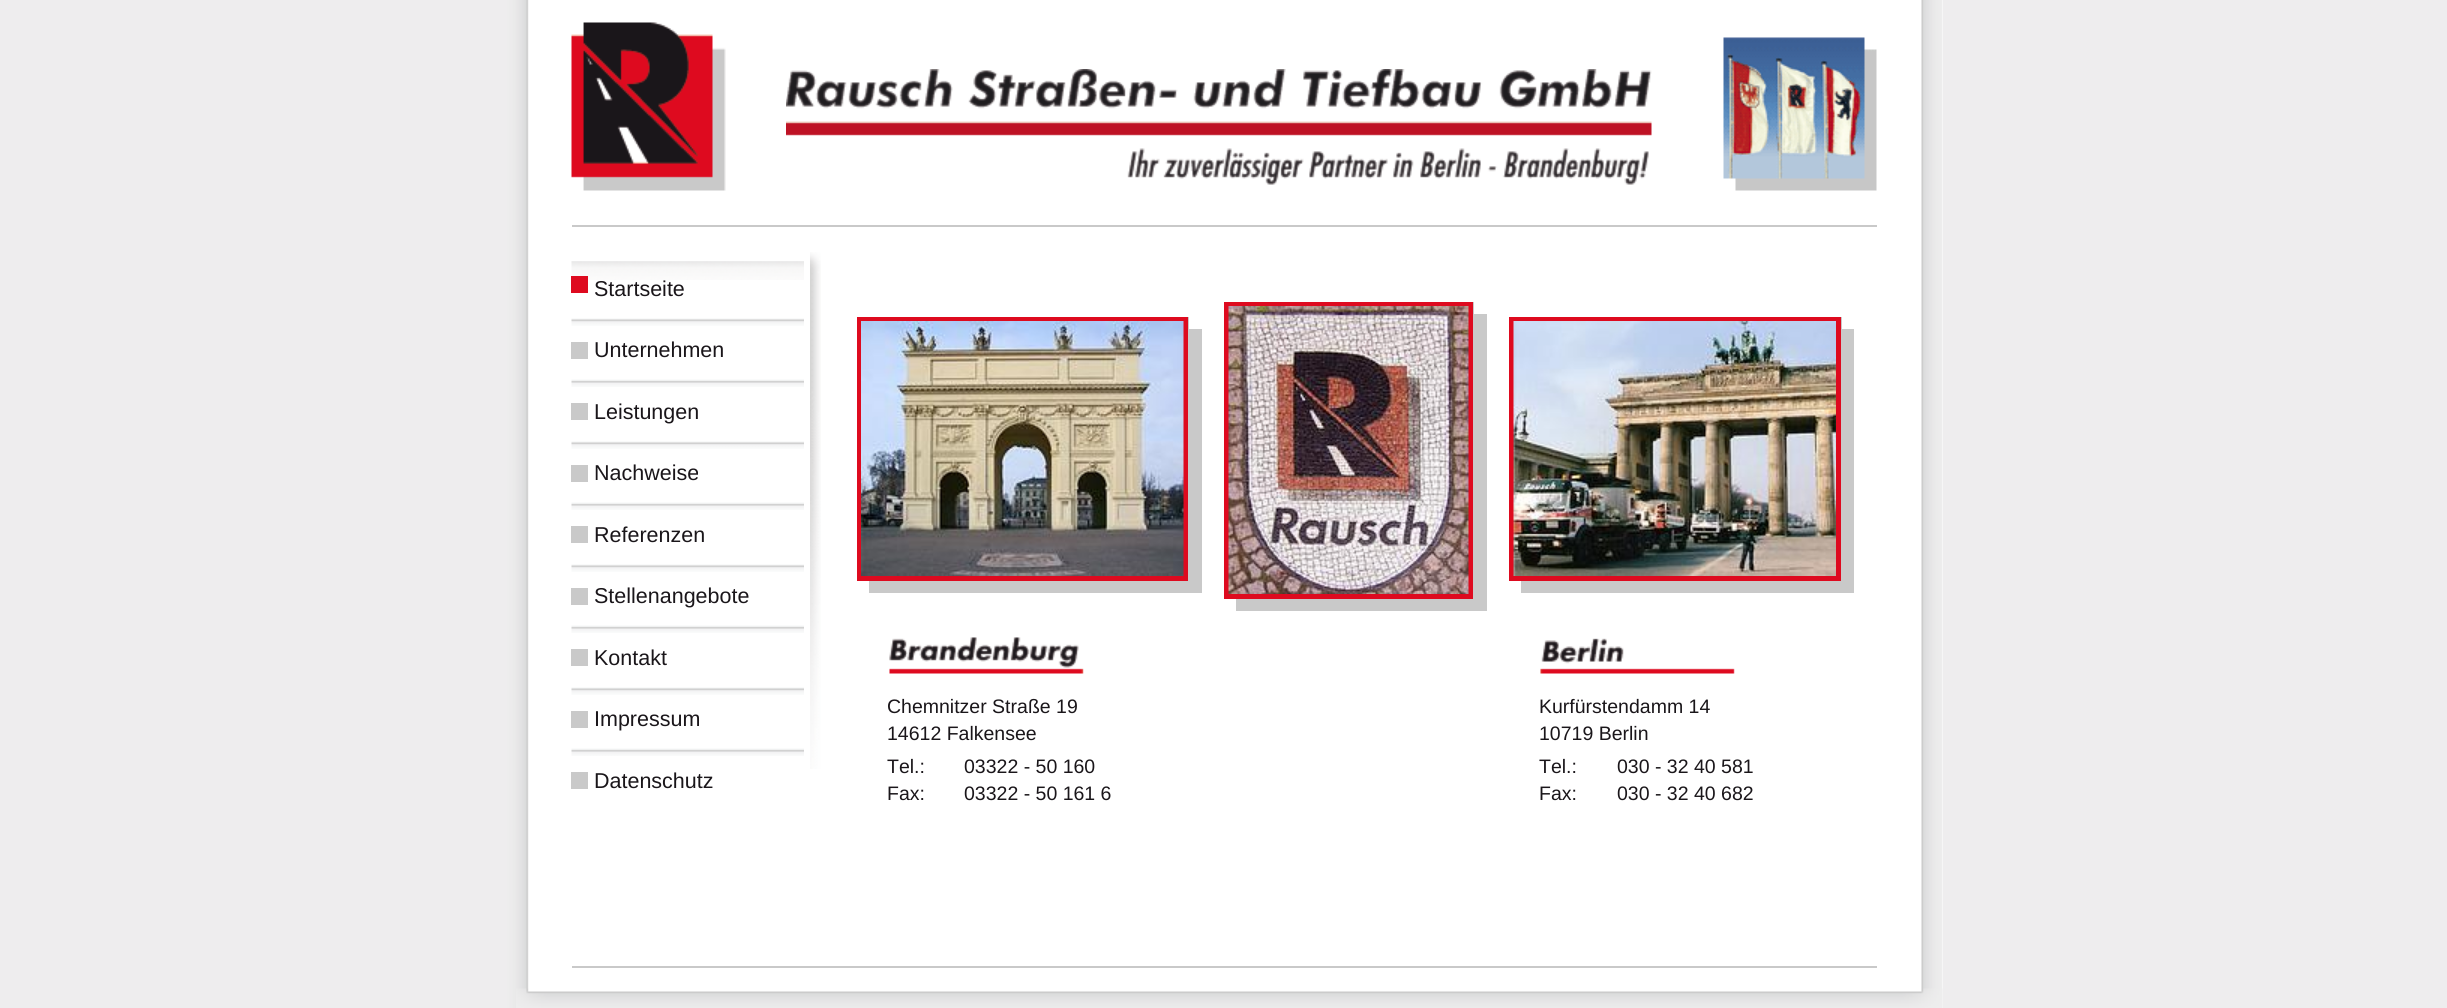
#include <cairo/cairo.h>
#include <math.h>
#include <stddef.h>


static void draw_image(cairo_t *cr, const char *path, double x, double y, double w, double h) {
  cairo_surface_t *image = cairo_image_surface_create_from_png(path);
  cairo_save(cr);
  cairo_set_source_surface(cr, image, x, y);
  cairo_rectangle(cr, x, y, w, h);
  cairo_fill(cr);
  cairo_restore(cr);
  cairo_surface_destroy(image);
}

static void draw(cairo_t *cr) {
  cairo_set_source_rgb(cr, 238 / 255.0, 237 / 255.0, 238 / 255.0);
  cairo_paint(cr);
  cairo_set_source_rgb(cr, 1, 1, 1);
  cairo_rectangle(cr, 1942, 0, 1, 1008);
  cairo_fill(cr);
  draw_image(cr, "images/1.png", 506, 0, 1437, 1008);
  cairo_set_source_rgb(cr, 201 / 255.0, 201 / 255.0, 201 / 255.0);
  cairo_rectangle(cr, 572, 225, 1305, 2);
  cairo_fill(cr);
  draw_image(cr, "images/2.png", 571, 22, 155, 169);
  draw_image(cr, "images/3.png", 786, 69, 866, 116);
  draw_image(cr, "images/4.png", 1723, 37, 154, 154);
  draw_image(cr, "images/5.png", 810, 252, 11, 517);
  draw_image(cr, "images/6.png", 571, 261, 233, 19);
  cairo_set_source_rgb(cr, 222 / 255.0, 10 / 255.0, 31 / 255.0);
  cairo_rectangle(cr, 571, 276, 17, 17);
  cairo_fill(cr);
  draw_image(cr, "images/7.png", 571, 318, 233, 8);
  cairo_set_source_rgb(cr, 201 / 255.0, 201 / 255.0, 201 / 255.0);
  cairo_rectangle(cr, 571, 342, 17, 17);
  cairo_fill(cr);
  draw_image(cr, "images/8.png", 571, 379, 233, 8);
  cairo_rectangle(cr, 571, 403, 17, 17);
  cairo_fill(cr);
  draw_image(cr, "images/9.png", 571, 441, 233, 8);
  cairo_rectangle(cr, 571, 465, 17, 17);
  cairo_fill(cr);
  draw_image(cr, "images/10.png", 571, 502, 233, 8);
  cairo_rectangle(cr, 571, 526, 17, 17);
  cairo_fill(cr);
  draw_image(cr, "images/9.png", 571, 564, 233, 8);
  cairo_rectangle(cr, 571, 588, 17, 17);
  cairo_fill(cr);
  draw_image(cr, "images/10.png", 571, 625, 233, 8);
  cairo_rectangle(cr, 571, 649, 17, 17);
  cairo_fill(cr);
  draw_image(cr, "images/11.png", 571, 687, 233, 8);
  cairo_rectangle(cr, 571, 711, 17, 17);
  cairo_fill(cr);
  draw_image(cr, "images/12.png", 571, 748, 233, 8);
  cairo_rectangle(cr, 571, 772, 17, 17);
  cairo_fill(cr);
  cairo_rectangle(cr, 1236, 302, 251, 309);
  cairo_fill(cr);
  cairo_set_source_rgb(cr, 1, 1, 1);
  cairo_rectangle(cr, 1474, 302, 13, 12);
  cairo_fill(cr);
  cairo_rectangle(cr, 1226.5, 304.5, 244, 292);
  cairo_set_source_rgb(cr, 222 / 255.0, 10 / 255.0, 31 / 255.0);
  cairo_set_line_width(cr, 5);
  cairo_stroke(cr);
  draw_image(cr, "images/13.png", 1228, 306, 241, 288);
  cairo_set_source_rgb(cr, 201 / 255.0, 201 / 255.0, 201 / 255.0);
  cairo_rectangle(cr, 869, 317, 333, 276);
  cairo_fill(cr);
  cairo_set_source_rgb(cr, 1, 1, 1);
  cairo_rectangle(cr, 1189, 317, 13, 12);
  cairo_fill(cr);
  cairo_rectangle(cr, 859.5, 319.5, 326, 259);
  cairo_set_source_rgb(cr, 222 / 255.0, 10 / 255.0, 31 / 255.0);
  cairo_stroke(cr);
  draw_image(cr, "images/14.png", 861, 321, 323, 255);
  draw_image(cr, "images/15.png", 889, 637, 195, 37);
  cairo_set_source_rgb(cr, 201 / 255.0, 201 / 255.0, 201 / 255.0);
  cairo_rectangle(cr, 1521, 317, 333, 276);
  cairo_fill(cr);
  cairo_set_source_rgb(cr, 1, 1, 1);
  cairo_rectangle(cr, 1842, 317, 12, 12);
  cairo_fill(cr);
  cairo_rectangle(cr, 1511.5, 319.5, 327, 259);
  cairo_set_source_rgb(cr, 222 / 255.0, 10 / 255.0, 31 / 255.0);
  cairo_stroke(cr);
  draw_image(cr, "images/16.png", 1513, 321, 323, 255);
  draw_image(cr, "images/17.png", 1540, 638, 195, 36);
  draw_image(cr, "images/18.png", 516, 988, 1427, 20);
  cairo_set_source_rgb(cr, 201 / 255.0, 201 / 255.0, 201 / 255.0);
  cairo_rectangle(cr, 572, 966, 1305, 2);
  cairo_fill(cr);
  cairo_select_font_face(cr, "Liberation Sans", CAIRO_FONT_SLANT_NORMAL, CAIRO_FONT_WEIGHT_NORMAL);
  cairo_set_font_size(cr, 21.5);
  cairo_set_source_rgb(cr, 26 / 255.0, 22 / 255.0, 26 / 255.0);
  cairo_move_to(cr, 594, 296);
  cairo_show_text(cr, "Startseite");
  cairo_move_to(cr, 594, 357);
  cairo_show_text(cr, "Unternehmen");
  cairo_move_to(cr, 594, 419);
  cairo_show_text(cr, "Leistungen");
  cairo_move_to(cr, 594, 480);
  cairo_show_text(cr, "Nachweise");
  cairo_move_to(cr, 594, 542);
  cairo_show_text(cr, "Referenzen");
  cairo_move_to(cr, 594, 603);
  cairo_show_text(cr, "Stellenangebote");
  cairo_move_to(cr, 594, 665);
  cairo_show_text(cr, "Kontakt");
  cairo_move_to(cr, 594, 726);
  cairo_show_text(cr, "Impressum");
  cairo_move_to(cr, 594, 788);
  cairo_show_text(cr, "Datenschutz");
  cairo_set_font_size(cr, 19.5);
  cairo_move_to(cr, 887, 713);
  cairo_show_text(cr, "Chemnitzer Straße 19");
  cairo_move_to(cr, 887, 740);
  cairo_show_text(cr, "14612 Falkensee");
  cairo_move_to(cr, 887, 773);
  cairo_show_text(cr, "Tel.:");
  cairo_move_to(cr, 964, 773);
  cairo_show_text(cr, "03322 - 50 160");
  cairo_move_to(cr, 887, 800);
  cairo_show_text(cr, "Fax:");
  cairo_move_to(cr, 964, 800);
  cairo_show_text(cr, "03322 - 50 161 6");
  cairo_move_to(cr, 1539, 713);
  cairo_show_text(cr, "Kurfürstendamm 14");
  cairo_move_to(cr, 1539, 740);
  cairo_show_text(cr, "10719 Berlin");
  cairo_move_to(cr, 1539, 773);
  cairo_show_text(cr, "Tel.:");
  cairo_move_to(cr, 1617, 773);
  cairo_show_text(cr, "030 - 32 40 581");
  cairo_move_to(cr, 1539, 800);
  cairo_show_text(cr, "Fax:");
  cairo_move_to(cr, 1617, 800);
  cairo_show_text(cr, "030 - 32 40 682");
}

int main(void) {
  cairo_surface_t *surface = cairo_image_surface_create(CAIRO_FORMAT_RGB24, 2447, 1008);
  cairo_t *cr = cairo_create(surface);
  cairo_font_options_t *options = cairo_font_options_create();
  cairo_font_options_set_hint_metrics(options, CAIRO_HINT_METRICS_OFF);
  cairo_font_options_set_hint_style(options, CAIRO_HINT_STYLE_NONE);
  cairo_set_font_options(cr, options);
  cairo_set_miter_limit(cr, 4);
  draw(cr);
  cairo_surface_write_to_png(surface, "out.png");
  cairo_font_options_destroy(options);
  cairo_destroy(cr);
  cairo_surface_destroy(surface);
  return 0;
}
